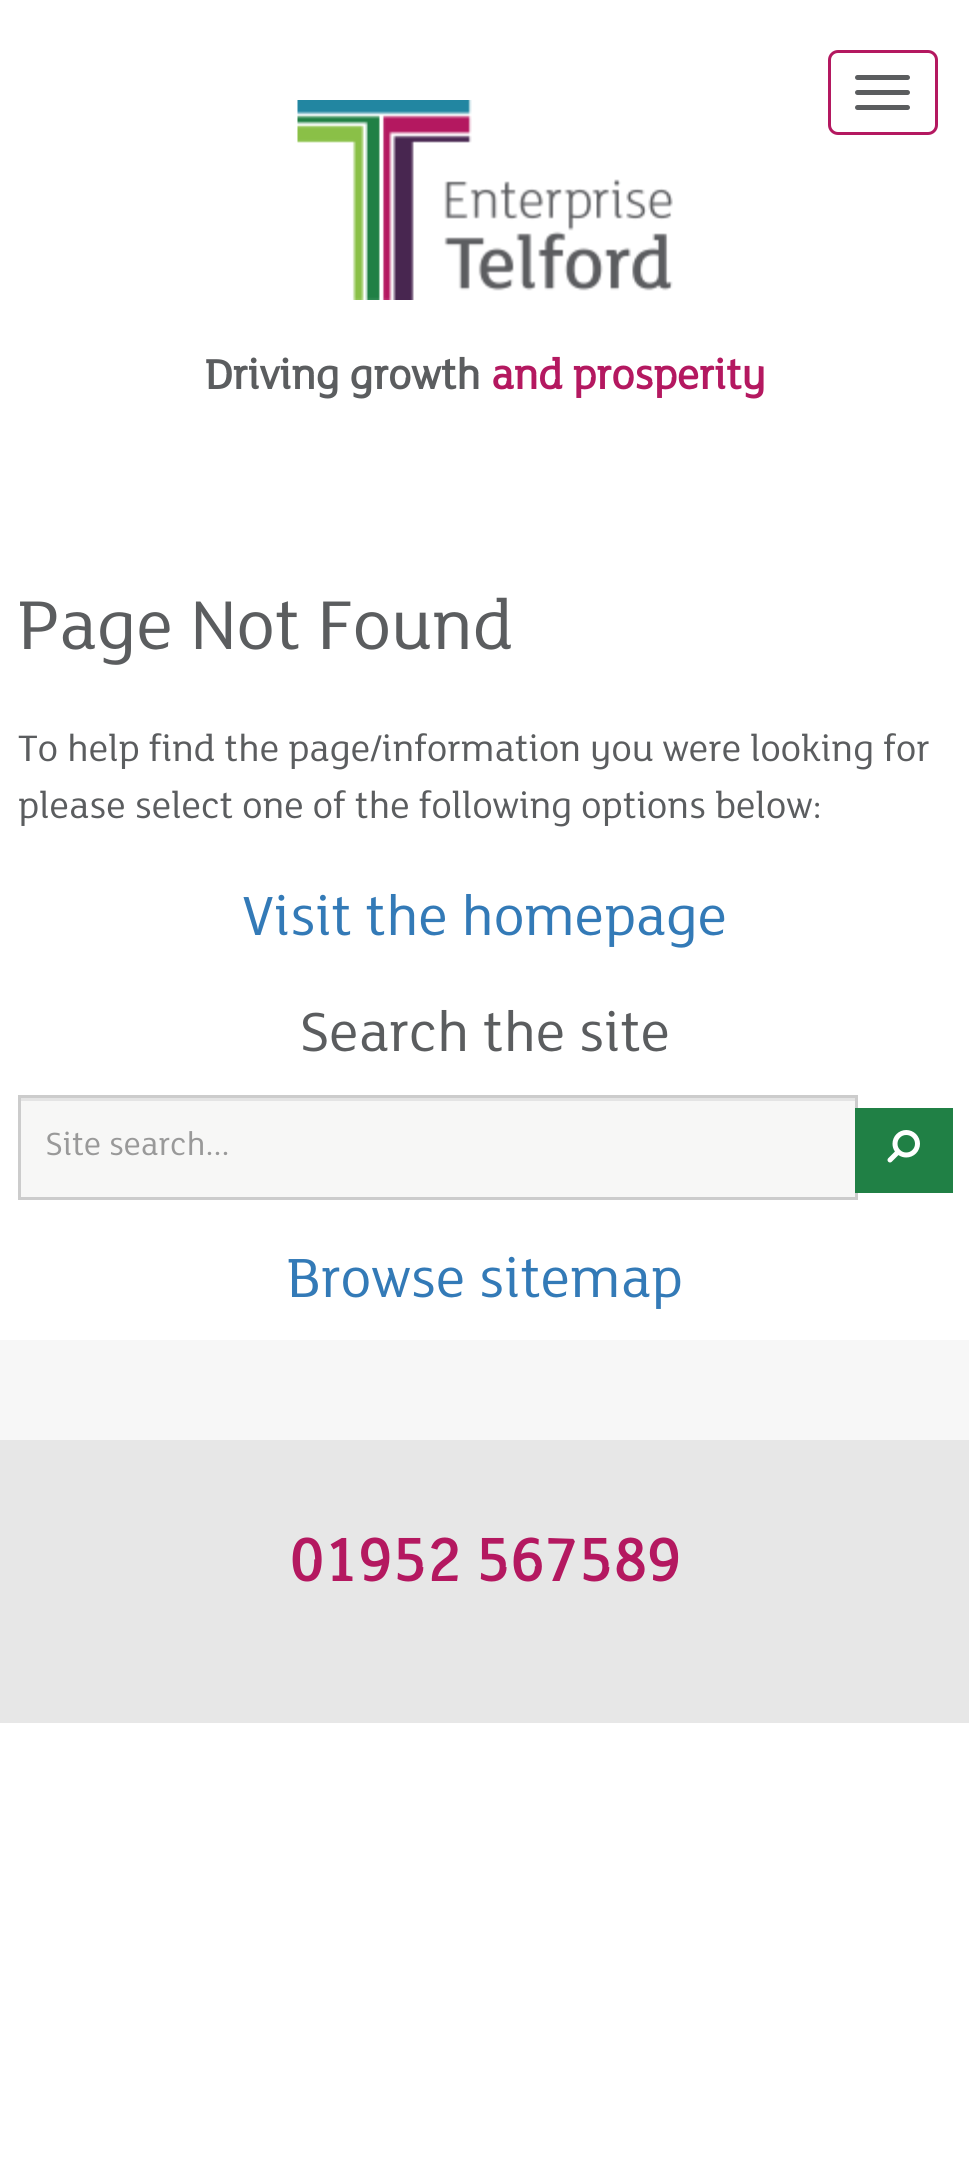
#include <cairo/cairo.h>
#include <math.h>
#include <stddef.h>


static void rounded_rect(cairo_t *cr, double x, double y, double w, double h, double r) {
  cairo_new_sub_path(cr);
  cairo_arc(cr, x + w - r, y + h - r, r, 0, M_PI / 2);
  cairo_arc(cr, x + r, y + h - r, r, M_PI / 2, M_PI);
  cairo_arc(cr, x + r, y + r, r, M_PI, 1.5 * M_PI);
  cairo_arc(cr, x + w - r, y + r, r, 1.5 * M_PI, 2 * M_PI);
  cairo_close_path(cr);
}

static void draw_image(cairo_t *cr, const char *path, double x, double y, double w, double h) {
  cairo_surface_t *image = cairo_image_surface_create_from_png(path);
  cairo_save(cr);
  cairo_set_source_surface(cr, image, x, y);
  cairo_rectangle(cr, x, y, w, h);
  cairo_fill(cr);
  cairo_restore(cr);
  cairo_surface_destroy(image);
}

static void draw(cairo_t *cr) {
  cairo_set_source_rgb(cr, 1, 1, 1);
  cairo_paint(cr);
  rounded_rect(cr, 829.5, 51.5, 107, 82, 8.5);
  cairo_set_source_rgb(cr, 180 / 255.0, 24 / 255.0, 96 / 255.0);
  cairo_set_line_width(cr, 3);
  cairo_stroke(cr);
  cairo_set_source_rgb(cr, 91 / 255.0, 93 / 255.0, 95 / 255.0);
  rounded_rect(cr, 855, 75, 55, 5, 2.5);
  cairo_fill(cr);
  rounded_rect(cr, 855, 90, 55, 5, 2.5);
  cairo_fill(cr);
  rounded_rect(cr, 855, 105, 55, 5, 2.5);
  cairo_fill(cr);
  draw_image(cr, "images/1.png", 297, 100, 376, 200);
  cairo_set_source_rgb(cr, 247 / 255.0, 247 / 255.0, 246 / 255.0);
  cairo_rectangle(cr, 21, 1101, 834, 96);
  cairo_fill(cr);
  cairo_set_source_rgb(cr, 228 / 255.0, 228 / 255.0, 228 / 255.0);
  cairo_rectangle(cr, 20, 1098, 835, 3);
  cairo_fill(cr);
  cairo_rectangle(cr, 19.5, 1096.5, 837, 102);
  cairo_set_source_rgb(cr, 204 / 255.0, 204 / 255.0, 204 / 255.0);
  cairo_stroke(cr);
  cairo_set_source_rgb(cr, 32 / 255.0, 128 / 255.0, 69 / 255.0);
  cairo_rectangle(cr, 855, 1108, 98, 85);
  cairo_fill(cr);
  draw_image(cr, "images/2.png", 887, 1130, 33, 33);
  cairo_set_source_rgb(cr, 247 / 255.0, 247 / 255.0, 247 / 255.0);
  cairo_rectangle(cr, 0, 1340, 969, 100);
  cairo_fill(cr);
  cairo_set_source_rgb(cr, 231 / 255.0, 231 / 255.0, 231 / 255.0);
  cairo_rectangle(cr, 0, 1440, 969, 283);
  cairo_fill(cr);
  cairo_select_font_face(cr, "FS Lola", CAIRO_FONT_SLANT_NORMAL, CAIRO_FONT_WEIGHT_BOLD);
  cairo_set_font_size(cr, 45);
  cairo_set_source_rgb(cr, 91 / 255.0, 93 / 255.0, 95 / 255.0);
  cairo_move_to(cr, 205, 389);
  cairo_show_text(cr, "Driving growth");
  cairo_set_source_rgb(cr, 180 / 255.0, 24 / 255.0, 96 / 255.0);
  cairo_move_to(cr, 491, 389);
  cairo_show_text(cr, "and prosperity");
  cairo_select_font_face(cr, "FS Lola", CAIRO_FONT_SLANT_NORMAL, CAIRO_FONT_WEIGHT_NORMAL);
  cairo_set_font_size(cr, 75);
  cairo_set_source_rgb(cr, 91 / 255.0, 93 / 255.0, 95 / 255.0);
  cairo_move_to(cr, 18, 649);
  cairo_show_text(cr, "Page Not Found");
  cairo_set_font_size(cr, 40);
  cairo_move_to(cr, 18, 761);
  cairo_show_text(cr, "To help find the page/information you were looking for");
  cairo_move_to(cr, 18, 818);
  cairo_show_text(cr, "please select one of the following options below:");
  cairo_set_font_size(cr, 60);
  cairo_set_source_rgb(cr, 51 / 255.0, 122 / 255.0, 183 / 255.0);
  cairo_move_to(cr, 242, 935);
  cairo_show_text(cr, "Visit the homepage");
  cairo_set_source_rgb(cr, 91 / 255.0, 93 / 255.0, 95 / 255.0);
  cairo_move_to(cr, 299, 1051);
  cairo_show_text(cr, "Search the site");
  cairo_set_font_size(cr, 35);
  cairo_set_source_rgb(cr, 153 / 255.0, 153 / 255.0, 153 / 255.0);
  cairo_move_to(cr, 45, 1155);
  cairo_show_text(cr, "Site search...");
  cairo_set_font_size(cr, 60);
  cairo_set_source_rgb(cr, 51 / 255.0, 122 / 255.0, 183 / 255.0);
  cairo_move_to(cr, 287, 1297);
  cairo_show_text(cr, "Browse sitemap");
  cairo_select_font_face(cr, "FS Lola", CAIRO_FONT_SLANT_NORMAL, CAIRO_FONT_WEIGHT_BOLD);
  cairo_set_font_size(cr, 65);
  cairo_set_source_rgb(cr, 180 / 255.0, 24 / 255.0, 96 / 255.0);
  cairo_move_to(cr, 289, 1581);
  cairo_show_text(cr, "01952 567589");
}

int main(void) {
  cairo_surface_t *surface = cairo_image_surface_create(CAIRO_FORMAT_RGB24, 969, 2160);
  cairo_t *cr = cairo_create(surface);
  cairo_font_options_t *options = cairo_font_options_create();
  cairo_font_options_set_hint_metrics(options, CAIRO_HINT_METRICS_OFF);
  cairo_font_options_set_hint_style(options, CAIRO_HINT_STYLE_NONE);
  cairo_set_font_options(cr, options);
  cairo_set_miter_limit(cr, 4);
  draw(cr);
  cairo_surface_write_to_png(surface, "out.png");
  cairo_font_options_destroy(options);
  cairo_destroy(cr);
  cairo_surface_destroy(surface);
  return 0;
}
